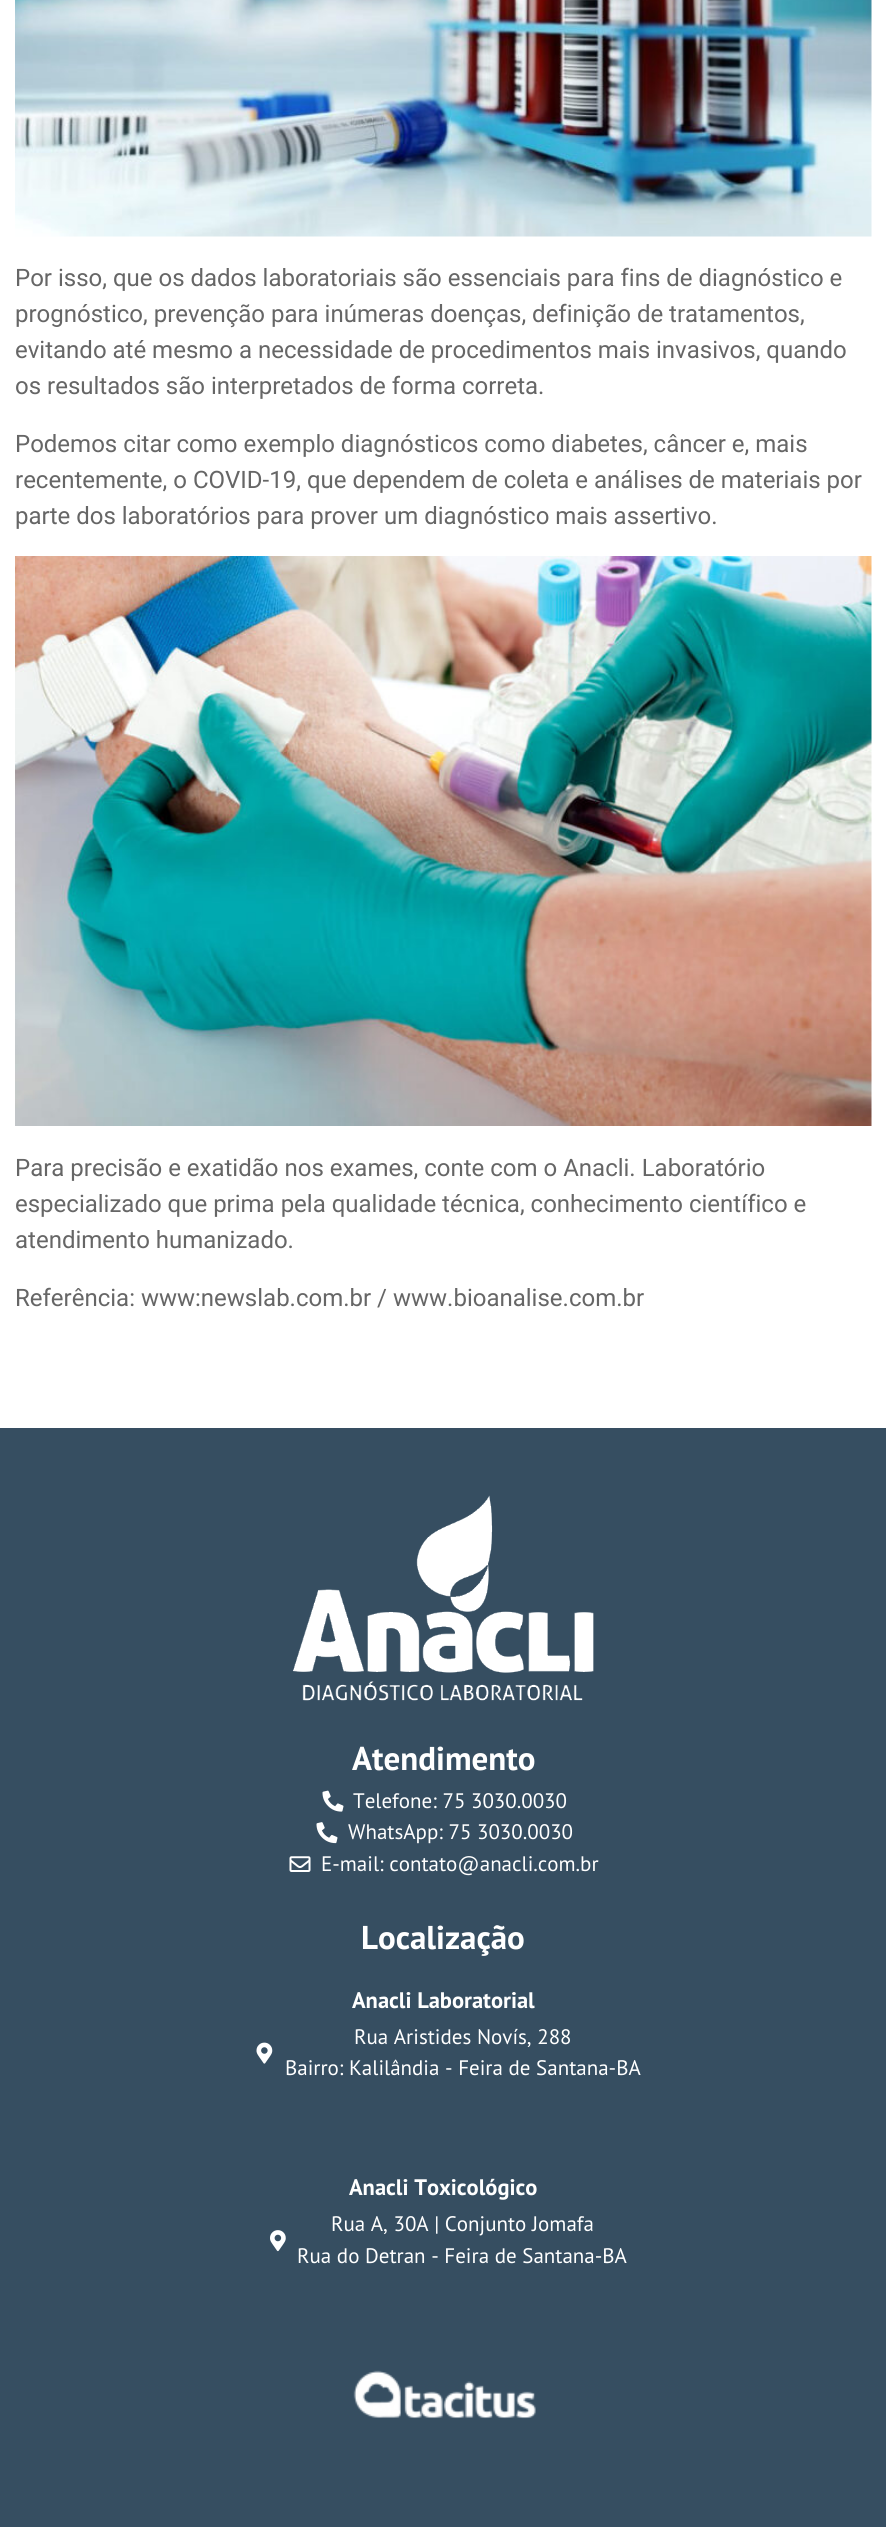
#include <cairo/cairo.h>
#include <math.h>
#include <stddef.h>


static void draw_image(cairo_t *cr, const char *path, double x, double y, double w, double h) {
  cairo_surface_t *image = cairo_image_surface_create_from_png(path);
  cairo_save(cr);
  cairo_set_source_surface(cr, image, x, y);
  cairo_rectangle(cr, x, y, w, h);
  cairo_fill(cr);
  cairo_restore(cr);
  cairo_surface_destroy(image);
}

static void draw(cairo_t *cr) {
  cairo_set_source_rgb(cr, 1, 1, 1);
  cairo_paint(cr);
  draw_image(cr, "images/1.png", 15, 0, 857, 237);
  draw_image(cr, "images/2.png", 15, 556, 857, 570);
  cairo_set_source_rgb(cr, 54 / 255.0, 78 / 255.0, 97 / 255.0);
  cairo_rectangle(cr, 0, 1428, 886, 1099);
  cairo_fill(cr);
  draw_image(cr, "images/3.png", 292, 1495, 302, 206);
  draw_image(cr, "images/4.png", 322, 1790, 22, 22);
  draw_image(cr, "images/5.png", 316, 1822, 22, 22);
  draw_image(cr, "images/6.png", 289, 1856, 22, 16);
  draw_image(cr, "images/7.png", 256, 2042, 17, 22);
  draw_image(cr, "images/8.png", 270, 2230, 16, 22);
  draw_image(cr, "images/9.png", 353, 2370, 183, 49);
  cairo_select_font_face(cr, "Roboto", CAIRO_FONT_SLANT_NORMAL, CAIRO_FONT_WEIGHT_NORMAL);
  cairo_set_font_size(cr, 24);
  cairo_set_source_rgb(cr, 102 / 255.0, 102 / 255.0, 102 / 255.0);
  cairo_move_to(cr, 15, 286);
  cairo_show_text(cr, "Por isso, que os dados laboratoriais são essenciais para fins de diagnóstico e");
  cairo_move_to(cr, 15, 322);
  cairo_show_text(cr, "prognóstico, prevenção para inúmeras doenças, definição de tratamentos,");
  cairo_move_to(cr, 15, 358);
  cairo_show_text(cr, "evitando até mesmo a necessidade de procedimentos mais invasivos, quando");
  cairo_move_to(cr, 15, 394);
  cairo_show_text(cr, "os resultados são interpretados de forma correta.");
  cairo_move_to(cr, 15, 452);
  cairo_show_text(cr, "Podemos citar como exemplo diagnósticos como diabetes, câncer e, mais");
  cairo_move_to(cr, 15, 488);
  cairo_show_text(cr, "recentemente, o COVID-19, que dependem de coleta e análises de materiais por");
  cairo_move_to(cr, 15, 524);
  cairo_show_text(cr, "parte dos laboratórios para prover um diagnóstico mais assertivo.");
  cairo_move_to(cr, 15, 1176);
  cairo_show_text(cr, "Para precisão e exatidão nos exames, conte com o Anacli. Laboratório");
  cairo_move_to(cr, 15, 1212);
  cairo_show_text(cr, "especializado que prima pela qualidade técnica, conhecimento científico e");
  cairo_move_to(cr, 15, 1248);
  cairo_show_text(cr, "atendimento humanizado.");
  cairo_move_to(cr, 15, 1306);
  cairo_show_text(cr, "Referência: www:newslab.com.br / www.bioanalise.com.br");
  cairo_select_font_face(cr, "PT Sans", CAIRO_FONT_SLANT_NORMAL, CAIRO_FONT_WEIGHT_BOLD);
  cairo_set_font_size(cr, 33);
  cairo_set_source_rgb(cr, 1, 1, 1);
  cairo_move_to(cr, 352, 1770);
  cairo_show_text(cr, "Atendimento");
  cairo_select_font_face(cr, "PT Sans", CAIRO_FONT_SLANT_NORMAL, CAIRO_FONT_WEIGHT_NORMAL);
  cairo_set_font_size(cr, 21);
  cairo_move_to(cr, 353, 1808);
  cairo_show_text(cr, "Telefone: 75 3030.0030");
  cairo_move_to(cr, 348, 1839);
  cairo_show_text(cr, "WhatsApp: 75 3030.0030");
  cairo_move_to(cr, 321, 1871);
  cairo_show_text(cr, "E-mail: contato@anacli.com.br");
  cairo_select_font_face(cr, "PT Sans", CAIRO_FONT_SLANT_NORMAL, CAIRO_FONT_WEIGHT_BOLD);
  cairo_set_font_size(cr, 33);
  cairo_move_to(cr, 361, 1949);
  cairo_show_text(cr, "Localização");
  cairo_set_font_size(cr, 22.5);
  cairo_move_to(cr, 352, 2008);
  cairo_show_text(cr, "Anacli Laboratorial");
  cairo_select_font_face(cr, "PT Sans", CAIRO_FONT_SLANT_NORMAL, CAIRO_FONT_WEIGHT_NORMAL);
  cairo_set_font_size(cr, 21);
  cairo_move_to(cr, 354, 2044);
  cairo_show_text(cr, "Rua Aristides Novís, 288");
  cairo_move_to(cr, 285, 2075);
  cairo_show_text(cr, "Bairro: Kalilândia - Feira de Santana-BA");
  cairo_select_font_face(cr, "PT Sans", CAIRO_FONT_SLANT_NORMAL, CAIRO_FONT_WEIGHT_BOLD);
  cairo_set_font_size(cr, 22.5);
  cairo_move_to(cr, 349, 2195);
  cairo_show_text(cr, "Anacli Toxicológico");
  cairo_select_font_face(cr, "PT Sans", CAIRO_FONT_SLANT_NORMAL, CAIRO_FONT_WEIGHT_NORMAL);
  cairo_set_font_size(cr, 21);
  cairo_move_to(cr, 331, 2231);
  cairo_show_text(cr, "Rua A, 30A | Conjunto Jomafa");
  cairo_move_to(cr, 297, 2263);
  cairo_show_text(cr, "Rua do Detran - Feira de Santana-BA");
}

int main(void) {
  cairo_surface_t *surface = cairo_image_surface_create(CAIRO_FORMAT_RGB24, 886, 2527);
  cairo_t *cr = cairo_create(surface);
  cairo_font_options_t *options = cairo_font_options_create();
  cairo_font_options_set_hint_metrics(options, CAIRO_HINT_METRICS_OFF);
  cairo_font_options_set_hint_style(options, CAIRO_HINT_STYLE_NONE);
  cairo_set_font_options(cr, options);
  cairo_set_miter_limit(cr, 4);
  draw(cr);
  cairo_surface_write_to_png(surface, "out.png");
  cairo_font_options_destroy(options);
  cairo_destroy(cr);
  cairo_surface_destroy(surface);
  return 0;
}
